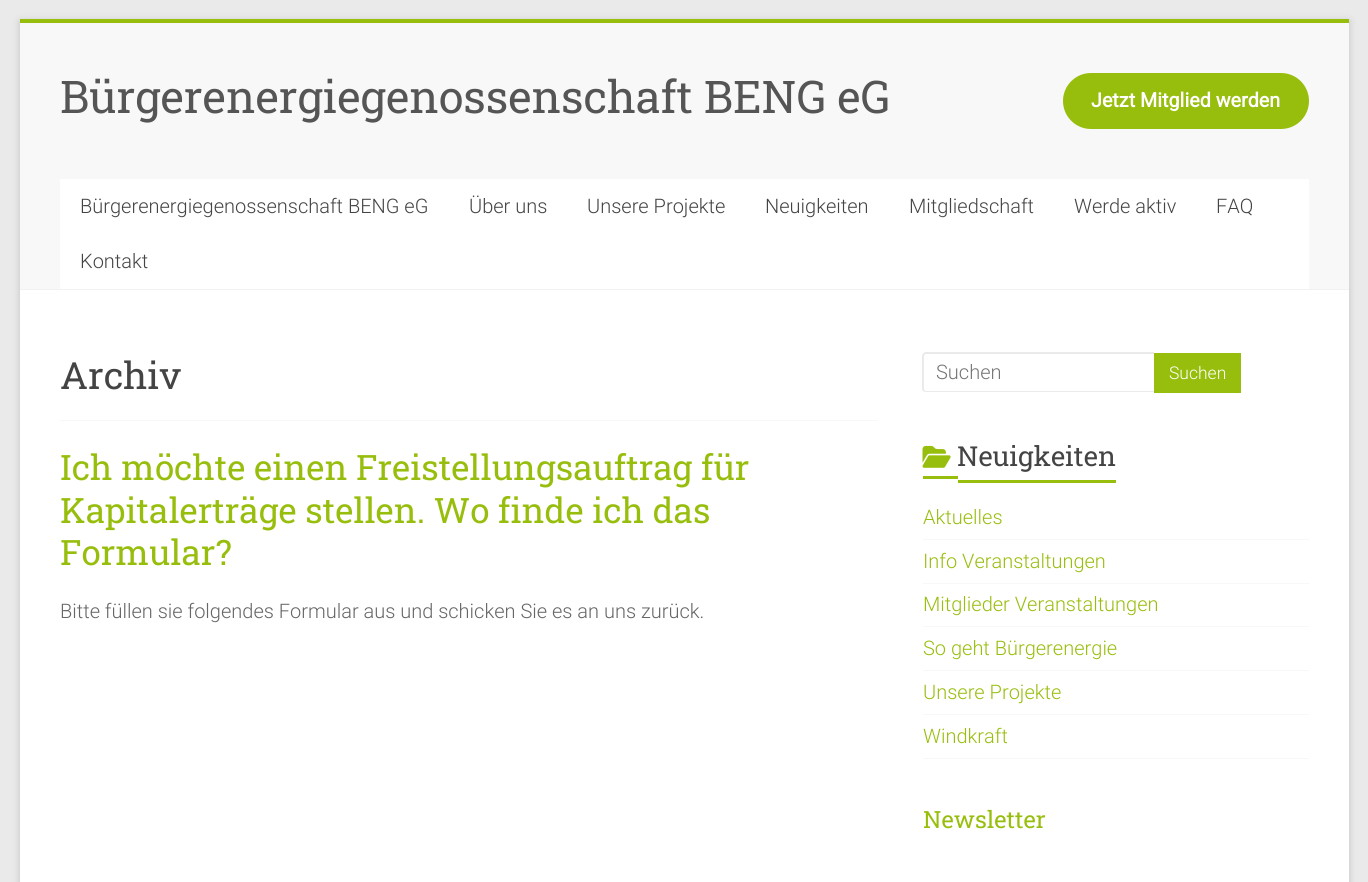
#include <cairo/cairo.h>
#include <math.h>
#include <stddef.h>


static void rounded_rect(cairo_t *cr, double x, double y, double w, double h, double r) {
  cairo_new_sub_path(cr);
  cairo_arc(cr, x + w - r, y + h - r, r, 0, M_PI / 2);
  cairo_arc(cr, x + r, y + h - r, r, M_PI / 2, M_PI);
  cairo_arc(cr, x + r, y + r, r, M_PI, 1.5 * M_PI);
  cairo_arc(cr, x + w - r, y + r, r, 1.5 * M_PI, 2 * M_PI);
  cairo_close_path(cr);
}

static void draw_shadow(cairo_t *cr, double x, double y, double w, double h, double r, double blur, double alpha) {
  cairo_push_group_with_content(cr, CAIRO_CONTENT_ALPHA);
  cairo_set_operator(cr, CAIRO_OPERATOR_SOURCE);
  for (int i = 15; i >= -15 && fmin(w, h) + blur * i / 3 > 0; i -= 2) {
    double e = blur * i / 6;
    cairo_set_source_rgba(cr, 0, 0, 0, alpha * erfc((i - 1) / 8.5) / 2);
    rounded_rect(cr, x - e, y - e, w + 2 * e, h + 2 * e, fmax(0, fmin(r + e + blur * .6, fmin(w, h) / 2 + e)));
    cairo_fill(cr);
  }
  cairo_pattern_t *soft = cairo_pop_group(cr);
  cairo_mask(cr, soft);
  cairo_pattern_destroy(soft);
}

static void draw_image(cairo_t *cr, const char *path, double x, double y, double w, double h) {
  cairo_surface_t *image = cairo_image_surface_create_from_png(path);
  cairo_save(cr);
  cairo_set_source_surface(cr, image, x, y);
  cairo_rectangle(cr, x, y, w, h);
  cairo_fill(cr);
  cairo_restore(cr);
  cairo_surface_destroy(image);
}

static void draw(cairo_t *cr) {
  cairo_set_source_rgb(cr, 234 / 255.0, 234 / 255.0, 234 / 255.0);
  cairo_paint(cr);
  cairo_set_source_rgb(cr, 100 / 255.0, 100 / 255.0, 100 / 255.0);
  draw_shadow(cr, 20, 21, 1329, 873, 0, 4, 0.3);
  cairo_set_source_rgb(cr, 1, 1, 1);
  cairo_rectangle(cr, 20, 290, 1329, 592);
  cairo_fill(cr);
  cairo_set_source_rgb(cr, 152 / 255.0, 190 / 255.0, 13 / 255.0);
  cairo_rectangle(cr, 20, 19, 1329, 4);
  cairo_fill(cr);
  cairo_set_source_rgb(cr, 248 / 255.0, 248 / 255.0, 248 / 255.0);
  cairo_rectangle(cr, 20, 23, 1329, 266);
  cairo_fill(cr);
  cairo_set_source_rgb(cr, 242 / 255.0, 242 / 255.0, 242 / 255.0);
  cairo_rectangle(cr, 20, 289, 1329, 1);
  cairo_fill(cr);
  cairo_set_source_rgb(cr, 152 / 255.0, 190 / 255.0, 13 / 255.0);
  rounded_rect(cr, 1063, 73, 246, 56, 28);
  cairo_fill(cr);
  cairo_set_source_rgb(cr, 1, 1, 1);
  cairo_rectangle(cr, 60, 179, 1249, 110);
  cairo_fill(cr);
  cairo_set_source_rgb(cr, 248 / 255.0, 248 / 255.0, 248 / 255.0);
  cairo_rectangle(cr, 60, 420, 818, 1);
  cairo_fill(cr);
  cairo_set_source_rgb(cr, 234 / 255.0, 234 / 255.0, 234 / 255.0);
  cairo_set_fill_rule(cr, CAIRO_FILL_RULE_EVEN_ODD);
  cairo_new_path(cr);
  cairo_move_to(cr, 926, 352);
  cairo_line_to(cr, 1154, 352);
  cairo_line_to(cr, 1154, 392);
  cairo_line_to(cr, 926, 392);
  cairo_curve_to(cr, 924, 392, 922, 391, 922, 389);
  cairo_line_to(cr, 922, 356);
  cairo_curve_to(cr, 922, 354, 924, 352, 926, 352);
  cairo_close_path(cr);
  cairo_move_to(cr, 926, 354);
  cairo_line_to(cr, 1154, 354);
  cairo_line_to(cr, 1154, 391);
  cairo_line_to(cr, 926, 391);
  cairo_curve_to(cr, 925, 391, 924, 390, 924, 389);
  cairo_line_to(cr, 924, 356);
  cairo_curve_to(cr, 924, 355, 925, 354, 926, 354);
  cairo_close_path(cr);
  cairo_fill(cr);
  cairo_set_source_rgb(cr, 152 / 255.0, 190 / 255.0, 13 / 255.0);
  cairo_rectangle(cr, 1154, 353, 87, 40);
  cairo_fill(cr);
  draw_image(cr, "images/1.png", 922, 445, 29, 23);
  cairo_rectangle(cr, 923, 476, 35, 3);
  cairo_fill(cr);
  cairo_rectangle(cr, 958, 480, 158, 3);
  cairo_fill(cr);
  cairo_set_source_rgb(cr, 248 / 255.0, 248 / 255.0, 248 / 255.0);
  cairo_rectangle(cr, 923, 539, 386, 1);
  cairo_fill(cr);
  cairo_rectangle(cr, 923, 583, 386, 1);
  cairo_fill(cr);
  cairo_rectangle(cr, 923, 626, 386, 1);
  cairo_fill(cr);
  cairo_rectangle(cr, 923, 670, 386, 1);
  cairo_fill(cr);
  cairo_rectangle(cr, 923, 714, 386, 1);
  cairo_fill(cr);
  cairo_rectangle(cr, 923, 758, 386, 1);
  cairo_fill(cr);
  cairo_select_font_face(cr, "Roboto Slab", CAIRO_FONT_SLANT_NORMAL, CAIRO_FONT_WEIGHT_NORMAL);
  cairo_set_font_size(cr, 45);
  cairo_set_source_rgb(cr, 85 / 255.0, 85 / 255.0, 85 / 255.0);
  cairo_move_to(cr, 60, 113);
  cairo_show_text(cr, "Bürgerenergiegenossenschaft BENG eG");
  cairo_select_font_face(cr, "Roboto", CAIRO_FONT_SLANT_NORMAL, CAIRO_FONT_WEIGHT_BOLD);
  cairo_set_font_size(cr, 19.75);
  cairo_set_source_rgb(cr, 1, 1, 1);
  cairo_move_to(cr, 1091, 107);
  cairo_show_text(cr, "Jetzt Mitglied werden");
  cairo_select_font_face(cr, "Roboto Light", CAIRO_FONT_SLANT_NORMAL, CAIRO_FONT_WEIGHT_NORMAL);
  cairo_set_font_size(cr, 20);
  cairo_set_source_rgb(cr, 68 / 255.0, 68 / 255.0, 68 / 255.0);
  cairo_move_to(cr, 80, 213);
  cairo_show_text(cr, "Bürgerenergiegenossenschaft BENG eG");
  cairo_move_to(cr, 469, 213);
  cairo_show_text(cr, "Über uns");
  cairo_move_to(cr, 587, 213);
  cairo_show_text(cr, "Unsere Projekte");
  cairo_move_to(cr, 765, 213);
  cairo_show_text(cr, "Neuigkeiten");
  cairo_move_to(cr, 909, 213);
  cairo_show_text(cr, "Mitgliedschaft");
  cairo_move_to(cr, 1074, 213);
  cairo_show_text(cr, "Werde aktiv");
  cairo_move_to(cr, 1216, 213);
  cairo_show_text(cr, "FAQ");
  cairo_move_to(cr, 80, 268);
  cairo_show_text(cr, "Kontakt");
  cairo_select_font_face(cr, "Roboto Slab", CAIRO_FONT_SLANT_NORMAL, CAIRO_FONT_WEIGHT_NORMAL);
  cairo_set_font_size(cr, 37.5);
  cairo_move_to(cr, 60, 389);
  cairo_show_text(cr, "Archiv");
  cairo_set_font_size(cr, 35);
  cairo_set_source_rgb(cr, 152 / 255.0, 190 / 255.0, 13 / 255.0);
  cairo_move_to(cr, 60, 480);
  cairo_show_text(cr, "Ich möchte einen Freistellungsauftrag für");
  cairo_move_to(cr, 60, 523);
  cairo_show_text(cr, "Kapitalerträge stellen. Wo finde ich das");
  cairo_move_to(cr, 60, 565);
  cairo_show_text(cr, "Formular?");
  cairo_select_font_face(cr, "Roboto Light", CAIRO_FONT_SLANT_NORMAL, CAIRO_FONT_WEIGHT_NORMAL);
  cairo_set_font_size(cr, 20);
  cairo_set_source_rgb(cr, 102 / 255.0, 102 / 255.0, 102 / 255.0);
  cairo_move_to(cr, 60, 618);
  cairo_show_text(cr, "Bitte füllen sie folgendes Formular aus und schicken Sie es an uns zurück.");
  cairo_set_source_rgb(cr, 117 / 255.0, 117 / 255.0, 117 / 255.0);
  cairo_move_to(cr, 936, 379);
  cairo_show_text(cr, "Suchen");
  cairo_set_font_size(cr, 17.5);
  cairo_set_source_rgb(cr, 1, 1, 1);
  cairo_move_to(cr, 1169, 379);
  cairo_show_text(cr, "Suchen");
  cairo_select_font_face(cr, "Roboto Slab", CAIRO_FONT_SLANT_NORMAL, CAIRO_FONT_WEIGHT_NORMAL);
  cairo_set_font_size(cr, 27.5);
  cairo_set_source_rgb(cr, 68 / 255.0, 68 / 255.0, 68 / 255.0);
  cairo_move_to(cr, 957, 466);
  cairo_show_text(cr, "Neuigkeiten");
  cairo_select_font_face(cr, "Roboto Light", CAIRO_FONT_SLANT_NORMAL, CAIRO_FONT_WEIGHT_NORMAL);
  cairo_set_font_size(cr, 20);
  cairo_set_source_rgb(cr, 152 / 255.0, 190 / 255.0, 13 / 255.0);
  cairo_move_to(cr, 923, 524);
  cairo_show_text(cr, "Aktuelles");
  cairo_move_to(cr, 923, 568);
  cairo_show_text(cr, "Info Veranstaltungen");
  cairo_move_to(cr, 923, 611);
  cairo_show_text(cr, "Mitglieder Veranstaltungen");
  cairo_move_to(cr, 923, 655);
  cairo_show_text(cr, "So geht Bürgerenergie");
  cairo_move_to(cr, 923, 699);
  cairo_show_text(cr, "Unsere Projekte");
  cairo_move_to(cr, 923, 743);
  cairo_show_text(cr, "Windkraft");
  cairo_select_font_face(cr, "Roboto Slab", CAIRO_FONT_SLANT_NORMAL, CAIRO_FONT_WEIGHT_NORMAL);
  cairo_set_font_size(cr, 23.75);
  cairo_move_to(cr, 923, 828);
  cairo_show_text(cr, "Newsletter");
}

int main(void) {
  cairo_surface_t *surface = cairo_image_surface_create(CAIRO_FORMAT_RGB24, 1368, 882);
  cairo_t *cr = cairo_create(surface);
  cairo_font_options_t *options = cairo_font_options_create();
  cairo_font_options_set_hint_metrics(options, CAIRO_HINT_METRICS_OFF);
  cairo_font_options_set_hint_style(options, CAIRO_HINT_STYLE_NONE);
  cairo_set_font_options(cr, options);
  cairo_set_miter_limit(cr, 4);
  draw(cr);
  cairo_surface_write_to_png(surface, "out.png");
  cairo_font_options_destroy(options);
  cairo_destroy(cr);
  cairo_surface_destroy(surface);
  return 0;
}
